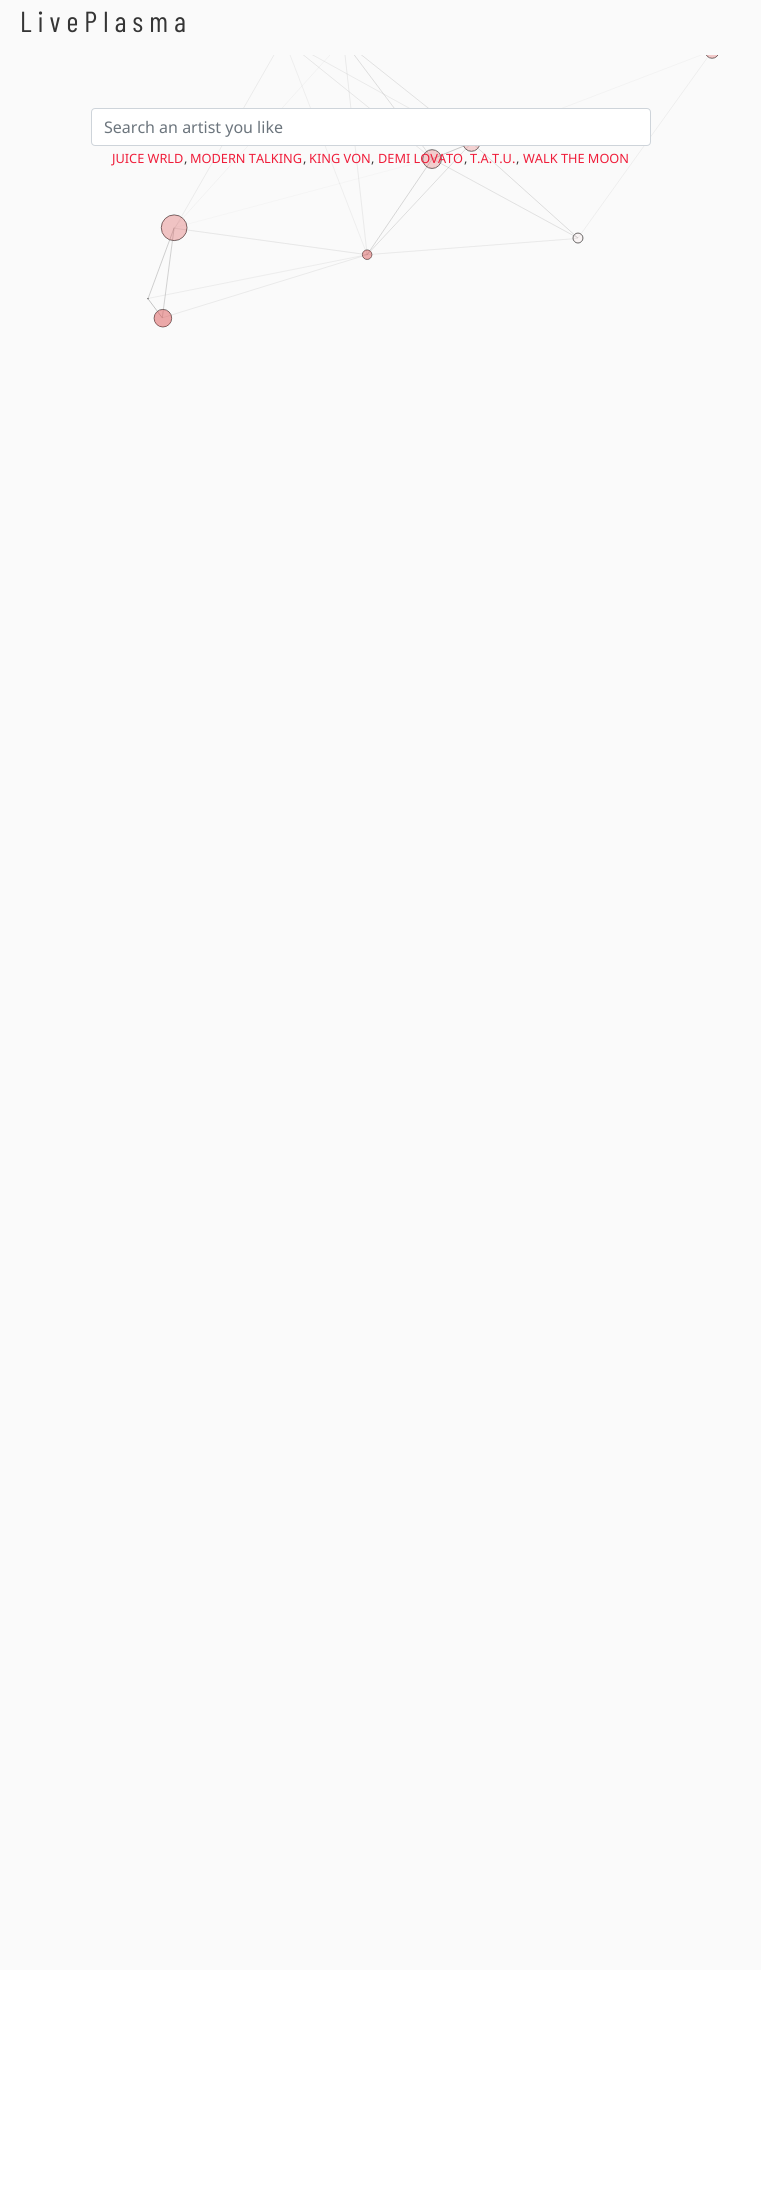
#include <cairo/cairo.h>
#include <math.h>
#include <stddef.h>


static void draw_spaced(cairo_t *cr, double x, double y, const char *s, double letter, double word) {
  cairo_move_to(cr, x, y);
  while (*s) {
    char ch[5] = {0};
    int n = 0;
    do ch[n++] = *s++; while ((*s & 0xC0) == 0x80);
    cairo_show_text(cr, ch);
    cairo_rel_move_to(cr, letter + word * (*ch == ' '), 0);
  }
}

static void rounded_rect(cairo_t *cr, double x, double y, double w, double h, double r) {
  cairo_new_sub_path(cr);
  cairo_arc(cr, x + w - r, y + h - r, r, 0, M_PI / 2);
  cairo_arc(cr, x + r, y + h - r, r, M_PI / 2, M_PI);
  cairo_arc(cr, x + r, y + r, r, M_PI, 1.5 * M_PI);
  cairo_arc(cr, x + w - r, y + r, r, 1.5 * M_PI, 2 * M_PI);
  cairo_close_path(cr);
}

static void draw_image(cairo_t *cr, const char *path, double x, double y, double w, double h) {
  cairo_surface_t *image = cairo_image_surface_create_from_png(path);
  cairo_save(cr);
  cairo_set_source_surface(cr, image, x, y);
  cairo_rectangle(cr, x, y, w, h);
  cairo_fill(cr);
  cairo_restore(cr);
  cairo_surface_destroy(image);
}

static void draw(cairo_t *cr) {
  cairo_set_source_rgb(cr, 250 / 255.0, 250 / 255.0, 250 / 255.0);
  cairo_paint(cr);
  draw_image(cr, "images/1.png", 147, 55, 571, 273);
  cairo_set_source_rgb(cr, 1, 1, 1);
  rounded_rect(cr, 91.5, 108.5, 559, 37, 3.5);
  cairo_fill_preserve(cr);
  cairo_set_source_rgb(cr, 206 / 255.0, 212 / 255.0, 218 / 255.0);
  cairo_set_line_width(cr, 1);
  cairo_stroke(cr);
  cairo_set_source_rgb(cr, 1, 1, 1);
  cairo_rectangle(cr, 0, 1970, 761, 219);
  cairo_fill(cr);
  cairo_select_font_face(cr, "Barlow Condensed", CAIRO_FONT_SLANT_NORMAL, CAIRO_FONT_WEIGHT_NORMAL);
  cairo_set_font_size(cr, 29);
  cairo_set_source_rgb(cr, 53 / 255.0, 53 / 255.0, 53 / 255.0);
  draw_spaced(cr, 20, 32, "LivePlasma", 6, 0);
  cairo_select_font_face(cr, "Noto Sans", CAIRO_FONT_SLANT_NORMAL, CAIRO_FONT_WEIGHT_NORMAL);
  cairo_set_font_size(cr, 16);
  cairo_set_source_rgb(cr, 108 / 255.0, 117 / 255.0, 125 / 255.0);
  cairo_move_to(cr, 104, 133);
  cairo_show_text(cr, "Search an artist you like");
  cairo_set_font_size(cr, 12.75);
  cairo_set_source_rgb(cr, 239 / 255.0, 29 / 255.0, 58 / 255.0);
  cairo_move_to(cr, 112, 163);
  cairo_show_text(cr, "JUICE WRLD");
  cairo_set_source_rgb(cr, 53 / 255.0, 53 / 255.0, 53 / 255.0);
  cairo_move_to(cr, 184, 163);
  cairo_show_text(cr, ",");
  cairo_set_source_rgb(cr, 239 / 255.0, 29 / 255.0, 58 / 255.0);
  cairo_move_to(cr, 190, 163);
  cairo_show_text(cr, "MODERN TALKING");
  cairo_set_source_rgb(cr, 53 / 255.0, 53 / 255.0, 53 / 255.0);
  cairo_move_to(cr, 303, 163);
  cairo_show_text(cr, ",");
  cairo_set_source_rgb(cr, 239 / 255.0, 29 / 255.0, 58 / 255.0);
  cairo_move_to(cr, 309, 163);
  cairo_show_text(cr, "KING VON");
  cairo_set_source_rgb(cr, 53 / 255.0, 53 / 255.0, 53 / 255.0);
  cairo_move_to(cr, 371, 163);
  cairo_show_text(cr, ",");
  cairo_set_source_rgb(cr, 239 / 255.0, 29 / 255.0, 58 / 255.0);
  cairo_move_to(cr, 378, 163);
  cairo_show_text(cr, "DEMI LOVATO");
  cairo_set_source_rgb(cr, 53 / 255.0, 53 / 255.0, 53 / 255.0);
  cairo_move_to(cr, 464, 163);
  cairo_show_text(cr, ",");
  cairo_set_source_rgb(cr, 239 / 255.0, 29 / 255.0, 58 / 255.0);
  cairo_move_to(cr, 470, 163);
  cairo_show_text(cr, "T.A.T.U.");
  cairo_set_source_rgb(cr, 53 / 255.0, 53 / 255.0, 53 / 255.0);
  cairo_move_to(cr, 516, 163);
  cairo_show_text(cr, ",");
  cairo_set_source_rgb(cr, 239 / 255.0, 29 / 255.0, 58 / 255.0);
  cairo_move_to(cr, 523, 163);
  cairo_show_text(cr, "WALK THE MOON");
}

int main(void) {
  cairo_surface_t *surface = cairo_image_surface_create(CAIRO_FORMAT_RGB24, 761, 2189);
  cairo_t *cr = cairo_create(surface);
  cairo_font_options_t *options = cairo_font_options_create();
  cairo_font_options_set_hint_metrics(options, CAIRO_HINT_METRICS_OFF);
  cairo_font_options_set_hint_style(options, CAIRO_HINT_STYLE_NONE);
  cairo_set_font_options(cr, options);
  cairo_set_miter_limit(cr, 4);
  draw(cr);
  cairo_surface_write_to_png(surface, "out.png");
  cairo_font_options_destroy(options);
  cairo_destroy(cr);
  cairo_surface_destroy(surface);
  return 0;
}
